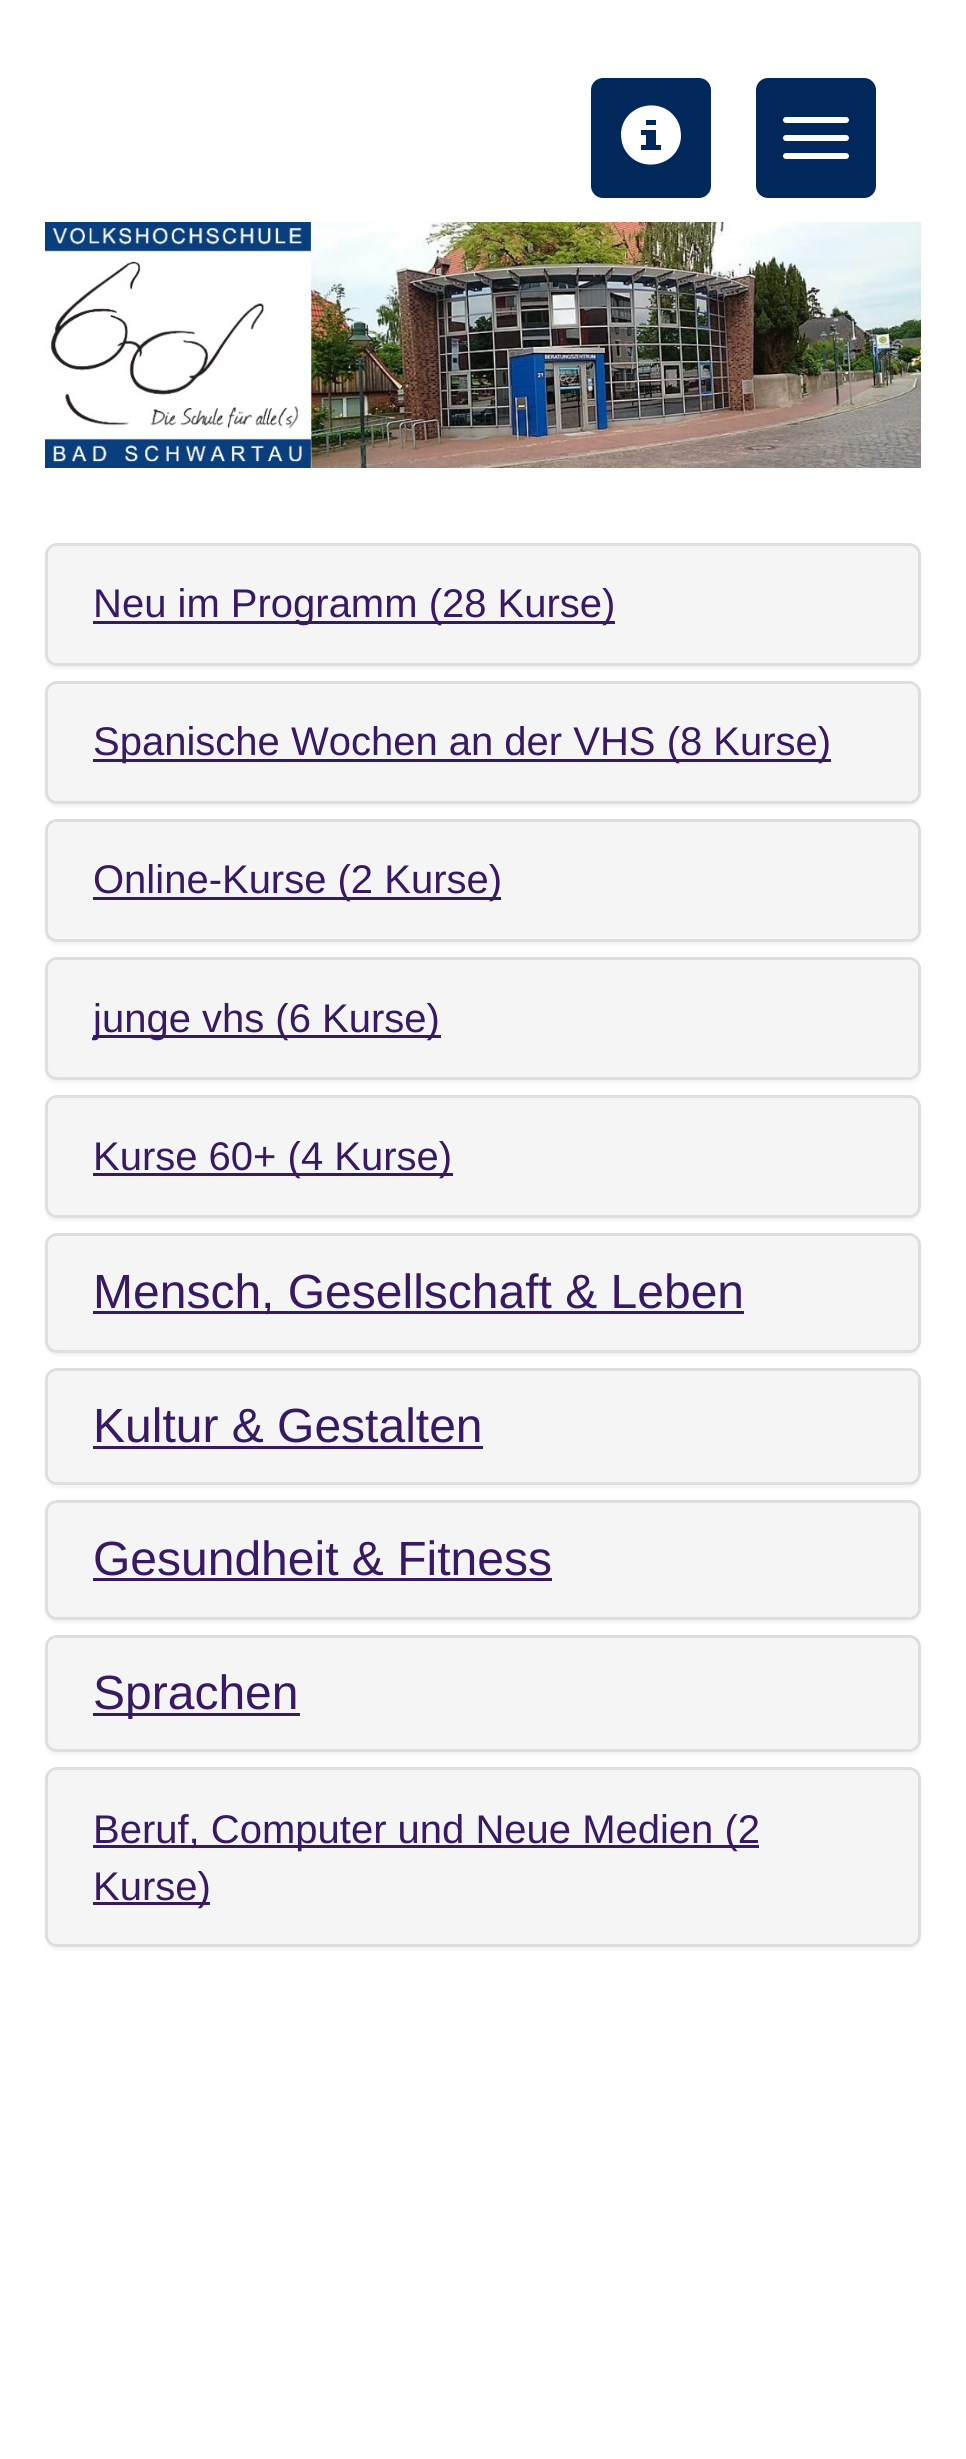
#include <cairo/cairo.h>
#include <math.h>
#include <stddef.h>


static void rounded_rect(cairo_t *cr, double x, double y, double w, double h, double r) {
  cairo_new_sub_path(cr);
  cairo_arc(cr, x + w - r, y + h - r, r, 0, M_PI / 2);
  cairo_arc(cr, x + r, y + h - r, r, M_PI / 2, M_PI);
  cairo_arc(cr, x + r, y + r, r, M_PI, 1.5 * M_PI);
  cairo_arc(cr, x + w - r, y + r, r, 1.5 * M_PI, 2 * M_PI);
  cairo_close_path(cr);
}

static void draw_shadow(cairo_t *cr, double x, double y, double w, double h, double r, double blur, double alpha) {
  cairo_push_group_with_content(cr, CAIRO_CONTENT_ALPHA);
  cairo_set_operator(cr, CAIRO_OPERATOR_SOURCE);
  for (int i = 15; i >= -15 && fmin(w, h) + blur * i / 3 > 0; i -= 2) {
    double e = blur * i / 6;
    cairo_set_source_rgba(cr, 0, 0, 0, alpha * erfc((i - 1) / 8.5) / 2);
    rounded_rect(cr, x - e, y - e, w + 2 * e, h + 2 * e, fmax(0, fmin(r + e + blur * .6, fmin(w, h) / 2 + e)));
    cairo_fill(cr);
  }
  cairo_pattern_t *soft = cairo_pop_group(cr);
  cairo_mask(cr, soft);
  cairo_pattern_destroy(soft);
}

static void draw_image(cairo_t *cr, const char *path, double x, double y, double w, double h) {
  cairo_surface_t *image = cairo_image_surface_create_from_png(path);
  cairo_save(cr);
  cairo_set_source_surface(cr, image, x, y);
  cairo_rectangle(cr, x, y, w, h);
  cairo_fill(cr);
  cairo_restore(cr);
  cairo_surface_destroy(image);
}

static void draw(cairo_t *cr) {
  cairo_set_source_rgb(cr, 1, 1, 1);
  cairo_paint(cr);
  cairo_set_source_rgb(cr, 0, 40 / 255.0, 90 / 255.0);
  rounded_rect(cr, 591, 78, 120, 120, 12);
  cairo_fill(cr);
  cairo_set_source_rgb(cr, 1, 1, 1);
  cairo_new_path(cr);
  cairo_move_to(cr, 625, 150);
  cairo_curve_to(cr, 622, 145, 621, 139, 621, 133);
  cairo_curve_to(cr, 623, 104, 662, 95, 677, 120);
  cairo_curve_to(cr, 680, 125, 681, 131, 681, 137);
  cairo_curve_to(cr, 679, 166, 640, 175, 625, 150);
  cairo_close_path(cr);
  cairo_move_to(cr, 641, 150);
  cairo_line_to(cr, 661, 150);
  cairo_line_to(cr, 661, 145);
  cairo_line_to(cr, 656, 145);
  cairo_line_to(cr, 656, 130);
  cairo_line_to(cr, 641, 130);
  cairo_line_to(cr, 641, 135);
  cairo_line_to(cr, 646, 135);
  cairo_line_to(cr, 646, 145);
  cairo_line_to(cr, 641, 145);
  cairo_close_path(cr);
  cairo_move_to(cr, 646, 125);
  cairo_line_to(cr, 656, 125);
  cairo_line_to(cr, 656, 120);
  cairo_line_to(cr, 646, 120);
  cairo_close_path(cr);
  cairo_fill(cr);
  cairo_set_source_rgb(cr, 0, 40 / 255.0, 90 / 255.0);
  rounded_rect(cr, 756, 78, 120, 120, 12);
  cairo_fill(cr);
  cairo_set_source_rgb(cr, 1, 1, 1);
  rounded_rect(cr, 783, 117, 66, 6, 3);
  cairo_fill(cr);
  rounded_rect(cr, 783, 135, 66, 6, 3);
  cairo_fill(cr);
  rounded_rect(cr, 783, 153, 66, 6, 3);
  cairo_fill(cr);
  draw_image(cr, "images/1.png", 45, 222, 876, 246);
  cairo_set_source_rgb(cr, 0, 0, 0);
  draw_shadow(cr, 45, 546, 876, 123, 12, 1.5, 0.05);
  rounded_rect(cr, 46.5, 544.5, 873, 120, 10.5);
  cairo_set_source_rgb(cr, 222 / 255.0, 222 / 255.0, 222 / 255.0);
  cairo_set_line_width(cr, 3);
  cairo_stroke(cr);
  cairo_set_source_rgb(cr, 245 / 255.0, 245 / 255.0, 245 / 255.0);
  rounded_rect(cr, 48, 546, 870, 117, 9);
  cairo_fill(cr);
  cairo_set_source_rgb(cr, 55 / 255.0, 25 / 255.0, 100 / 255.0);
  cairo_rectangle(cr, 93, 621, 522, 3);
  cairo_fill(cr);
  cairo_set_source_rgb(cr, 0, 0, 0);
  draw_shadow(cr, 45, 684, 876, 123, 12, 1.5, 0.05);
  rounded_rect(cr, 46.5, 682.5, 873, 120, 10.5);
  cairo_set_source_rgb(cr, 222 / 255.0, 222 / 255.0, 222 / 255.0);
  cairo_stroke(cr);
  cairo_set_source_rgb(cr, 245 / 255.0, 245 / 255.0, 245 / 255.0);
  rounded_rect(cr, 48, 684, 870, 117, 9);
  cairo_fill(cr);
  cairo_set_source_rgb(cr, 55 / 255.0, 25 / 255.0, 100 / 255.0);
  cairo_rectangle(cr, 93, 759, 738, 3);
  cairo_fill(cr);
  cairo_set_source_rgb(cr, 0, 0, 0);
  draw_shadow(cr, 45, 822, 876, 123, 12, 1.5, 0.05);
  rounded_rect(cr, 46.5, 820.5, 873, 120, 10.5);
  cairo_set_source_rgb(cr, 222 / 255.0, 222 / 255.0, 222 / 255.0);
  cairo_stroke(cr);
  cairo_set_source_rgb(cr, 245 / 255.0, 245 / 255.0, 245 / 255.0);
  rounded_rect(cr, 48, 822, 870, 117, 9);
  cairo_fill(cr);
  cairo_set_source_rgb(cr, 55 / 255.0, 25 / 255.0, 100 / 255.0);
  cairo_rectangle(cr, 93, 897, 408, 3);
  cairo_fill(cr);
  cairo_set_source_rgb(cr, 0, 0, 0);
  draw_shadow(cr, 45, 960, 876, 123, 12, 1.5, 0.05);
  rounded_rect(cr, 46.5, 958.5, 873, 120, 10.5);
  cairo_set_source_rgb(cr, 222 / 255.0, 222 / 255.0, 222 / 255.0);
  cairo_stroke(cr);
  cairo_set_source_rgb(cr, 245 / 255.0, 245 / 255.0, 245 / 255.0);
  rounded_rect(cr, 48, 960, 870, 117, 9);
  cairo_fill(cr);
  cairo_set_source_rgb(cr, 55 / 255.0, 25 / 255.0, 100 / 255.0);
  cairo_rectangle(cr, 93, 1035, 348, 3);
  cairo_fill(cr);
  cairo_set_source_rgb(cr, 0, 0, 0);
  draw_shadow(cr, 45, 1098, 876, 123, 12, 1.5, 0.05);
  rounded_rect(cr, 46.5, 1096.5, 873, 120, 10.5);
  cairo_set_source_rgb(cr, 222 / 255.0, 222 / 255.0, 222 / 255.0);
  cairo_stroke(cr);
  cairo_set_source_rgb(cr, 245 / 255.0, 245 / 255.0, 245 / 255.0);
  rounded_rect(cr, 48, 1098, 870, 117, 9);
  cairo_fill(cr);
  cairo_set_source_rgb(cr, 55 / 255.0, 25 / 255.0, 100 / 255.0);
  cairo_rectangle(cr, 93, 1173, 360, 3);
  cairo_fill(cr);
  cairo_set_source_rgb(cr, 0, 0, 0);
  draw_shadow(cr, 45, 1236, 876, 120, 12, 1.5, 0.05);
  rounded_rect(cr, 46.5, 1234.5, 873, 117, 10.5);
  cairo_set_source_rgb(cr, 222 / 255.0, 222 / 255.0, 222 / 255.0);
  cairo_stroke(cr);
  cairo_set_source_rgb(cr, 245 / 255.0, 245 / 255.0, 245 / 255.0);
  rounded_rect(cr, 48, 1236, 870, 114, 9);
  cairo_fill(cr);
  cairo_set_source_rgb(cr, 55 / 255.0, 25 / 255.0, 100 / 255.0);
  cairo_rectangle(cr, 93, 1311, 651, 3);
  cairo_fill(cr);
  cairo_set_source_rgb(cr, 0, 0, 0);
  draw_shadow(cr, 45, 1371, 876, 117, 12, 1.5, 0.05);
  rounded_rect(cr, 46.5, 1369.5, 873, 114, 10.5);
  cairo_set_source_rgb(cr, 222 / 255.0, 222 / 255.0, 222 / 255.0);
  cairo_stroke(cr);
  cairo_set_source_rgb(cr, 245 / 255.0, 245 / 255.0, 245 / 255.0);
  rounded_rect(cr, 48, 1371, 870, 111, 9);
  cairo_fill(cr);
  cairo_set_source_rgb(cr, 55 / 255.0, 25 / 255.0, 100 / 255.0);
  cairo_rectangle(cr, 93, 1446, 390, 3);
  cairo_fill(cr);
  cairo_set_source_rgb(cr, 0, 0, 0);
  draw_shadow(cr, 45, 1503, 876, 120, 12, 1.5, 0.05);
  rounded_rect(cr, 46.5, 1501.5, 873, 117, 10.5);
  cairo_set_source_rgb(cr, 222 / 255.0, 222 / 255.0, 222 / 255.0);
  cairo_stroke(cr);
  cairo_set_source_rgb(cr, 245 / 255.0, 245 / 255.0, 245 / 255.0);
  rounded_rect(cr, 48, 1503, 870, 114, 9);
  cairo_fill(cr);
  cairo_set_source_rgb(cr, 55 / 255.0, 25 / 255.0, 100 / 255.0);
  cairo_rectangle(cr, 93, 1578, 459, 3);
  cairo_fill(cr);
  cairo_set_source_rgb(cr, 0, 0, 0);
  draw_shadow(cr, 45, 1638, 876, 117, 12, 1.5, 0.05);
  rounded_rect(cr, 46.5, 1636.5, 873, 114, 10.5);
  cairo_set_source_rgb(cr, 222 / 255.0, 222 / 255.0, 222 / 255.0);
  cairo_stroke(cr);
  cairo_set_source_rgb(cr, 245 / 255.0, 245 / 255.0, 245 / 255.0);
  rounded_rect(cr, 48, 1638, 870, 111, 9);
  cairo_fill(cr);
  cairo_set_source_rgb(cr, 55 / 255.0, 25 / 255.0, 100 / 255.0);
  cairo_rectangle(cr, 93, 1713, 207, 3);
  cairo_fill(cr);
  cairo_set_source_rgb(cr, 0, 0, 0);
  draw_shadow(cr, 45, 1770, 876, 180, 12, 1.5, 0.05);
  rounded_rect(cr, 46.5, 1768.5, 873, 177, 10.5);
  cairo_set_source_rgb(cr, 222 / 255.0, 222 / 255.0, 222 / 255.0);
  cairo_stroke(cr);
  cairo_set_source_rgb(cr, 245 / 255.0, 245 / 255.0, 245 / 255.0);
  rounded_rect(cr, 48, 1770, 870, 174, 9);
  cairo_fill(cr);
  cairo_set_source_rgb(cr, 55 / 255.0, 25 / 255.0, 100 / 255.0);
  cairo_rectangle(cr, 93, 1845, 666, 3);
  cairo_fill(cr);
  cairo_rectangle(cr, 93, 1902, 117, 3);
  cairo_fill(cr);
  cairo_select_font_face(cr, "Liberation Sans", CAIRO_FONT_SLANT_NORMAL, CAIRO_FONT_WEIGHT_NORMAL);
  cairo_set_font_size(cr, 40);
  cairo_move_to(cr, 93, 617);
  cairo_show_text(cr, "Neu im Programm (28 Kurse)");
  cairo_move_to(cr, 93, 755);
  cairo_show_text(cr, "Spanische Wochen an der VHS (8 Kurse)");
  cairo_move_to(cr, 93, 893);
  cairo_show_text(cr, "Online-Kurse (2 Kurse)");
  cairo_move_to(cr, 93, 1032);
  cairo_show_text(cr, "junge vhs (6 Kurse)");
  cairo_move_to(cr, 93, 1170);
  cairo_show_text(cr, "Kurse 60+ (4 Kurse)");
  cairo_set_font_size(cr, 48);
  cairo_move_to(cr, 93, 1308);
  cairo_show_text(cr, "Mensch, Gesellschaft & Leben");
  cairo_move_to(cr, 93, 1442);
  cairo_show_text(cr, "Kultur & Gestalten");
  cairo_move_to(cr, 93, 1575);
  cairo_show_text(cr, "Gesundheit & Fitness");
  cairo_move_to(cr, 93, 1709);
  cairo_show_text(cr, "Sprachen");
  cairo_set_font_size(cr, 40);
  cairo_move_to(cr, 93, 1843);
  cairo_show_text(cr, "Beruf, Computer und Neue Medien (2");
  cairo_move_to(cr, 93, 1900);
  cairo_show_text(cr, "Kurse)");
}

int main(void) {
  cairo_surface_t *surface = cairo_image_surface_create(CAIRO_FORMAT_RGB24, 966, 2459);
  cairo_t *cr = cairo_create(surface);
  cairo_font_options_t *options = cairo_font_options_create();
  cairo_font_options_set_hint_metrics(options, CAIRO_HINT_METRICS_OFF);
  cairo_font_options_set_hint_style(options, CAIRO_HINT_STYLE_NONE);
  cairo_set_font_options(cr, options);
  cairo_set_miter_limit(cr, 4);
  draw(cr);
  cairo_surface_write_to_png(surface, "out.png");
  cairo_font_options_destroy(options);
  cairo_destroy(cr);
  cairo_surface_destroy(surface);
  return 0;
}
